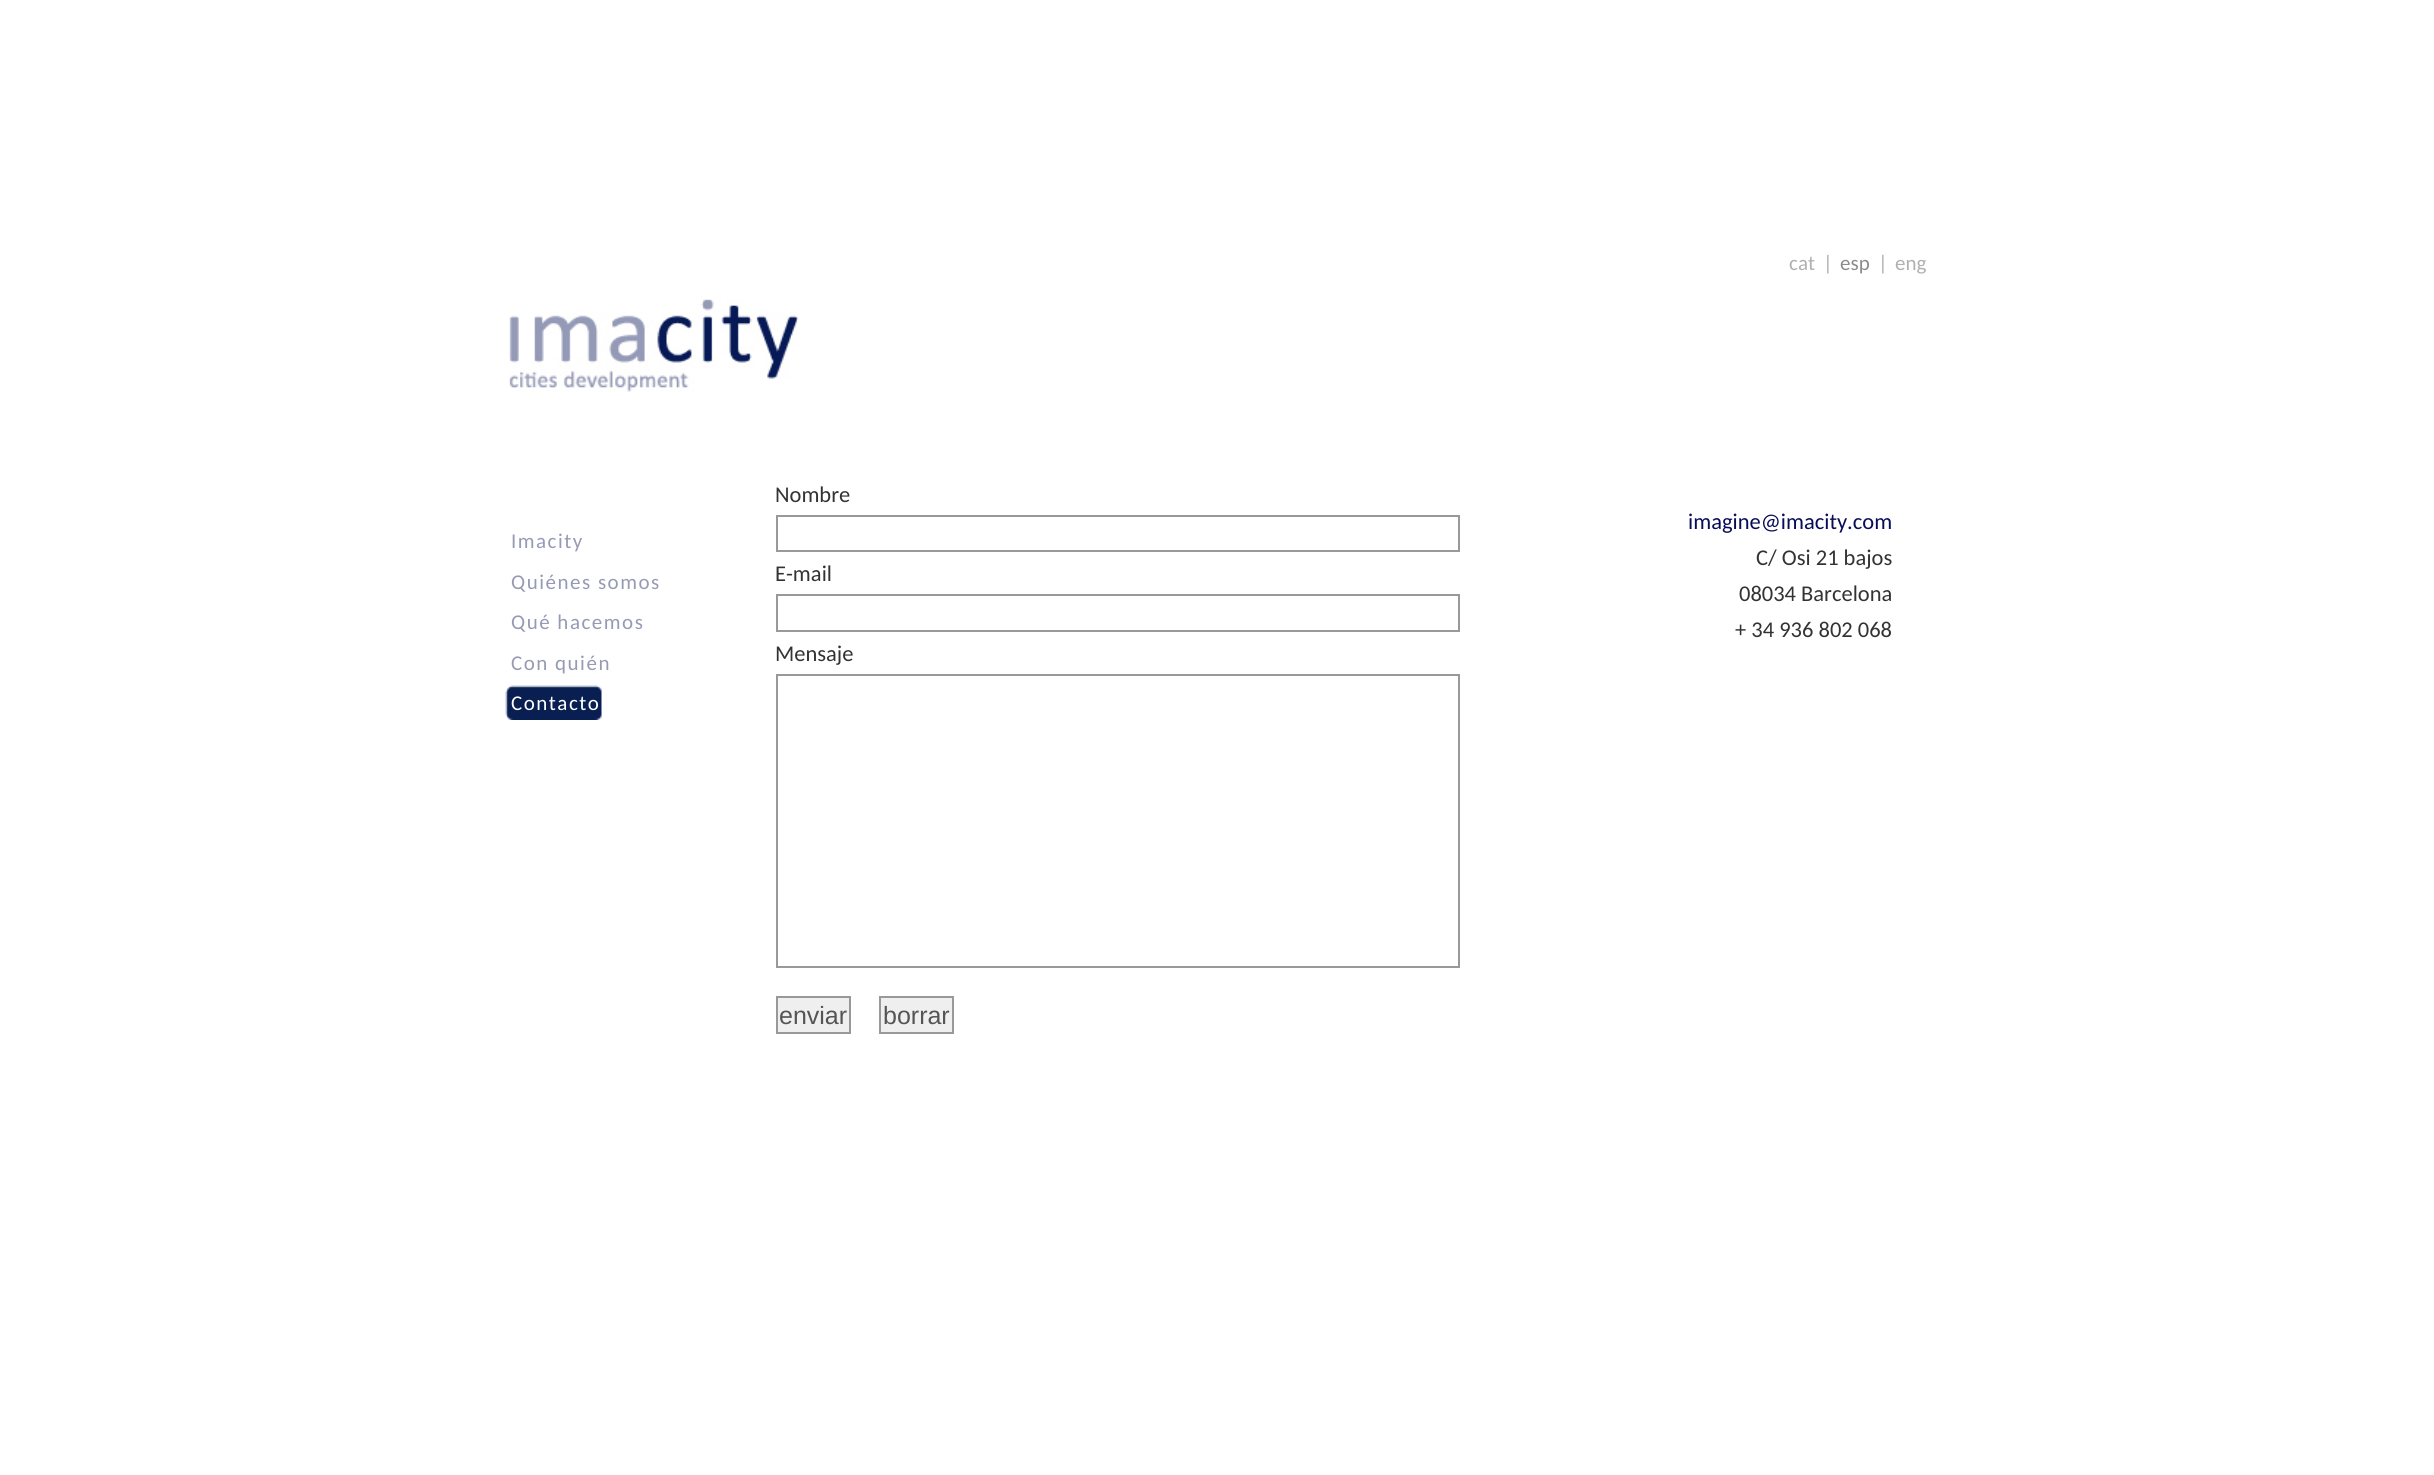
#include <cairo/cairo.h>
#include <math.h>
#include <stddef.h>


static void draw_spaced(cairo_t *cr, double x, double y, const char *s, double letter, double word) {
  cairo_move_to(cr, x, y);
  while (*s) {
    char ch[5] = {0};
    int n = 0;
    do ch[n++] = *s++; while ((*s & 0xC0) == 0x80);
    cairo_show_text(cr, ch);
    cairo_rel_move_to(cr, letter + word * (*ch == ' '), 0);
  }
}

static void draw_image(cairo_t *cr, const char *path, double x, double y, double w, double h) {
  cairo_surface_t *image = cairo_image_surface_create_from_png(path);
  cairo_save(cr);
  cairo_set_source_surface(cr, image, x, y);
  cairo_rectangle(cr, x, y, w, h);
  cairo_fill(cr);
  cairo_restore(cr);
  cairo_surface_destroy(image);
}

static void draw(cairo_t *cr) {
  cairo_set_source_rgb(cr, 1, 1, 1);
  cairo_paint(cr);
  draw_image(cr, "images/1.png", 509, 299, 290, 93);
  draw_image(cr, "images/2.png", 505, 685, 97, 35);
  cairo_rectangle(cr, 777, 516, 682, 35);
  cairo_set_source_rgb(cr, 153 / 255.0, 153 / 255.0, 153 / 255.0);
  cairo_stroke(cr);
  cairo_rectangle(cr, 777, 595, 682, 36);
  cairo_stroke(cr);
  cairo_rectangle(cr, 777, 675, 682, 292);
  cairo_stroke(cr);
  cairo_set_source_rgb(cr, 239 / 255.0, 239 / 255.0, 239 / 255.0);
  cairo_rectangle(cr, 777, 997, 73, 36);
  cairo_fill_preserve(cr);
  cairo_set_source_rgb(cr, 153 / 255.0, 153 / 255.0, 153 / 255.0);
  cairo_stroke(cr);
  cairo_set_source_rgb(cr, 239 / 255.0, 239 / 255.0, 239 / 255.0);
  cairo_rectangle(cr, 880, 997, 73, 36);
  cairo_fill_preserve(cr);
  cairo_set_source_rgb(cr, 153 / 255.0, 153 / 255.0, 153 / 255.0);
  cairo_stroke(cr);
  cairo_select_font_face(cr, "Carlito", CAIRO_FONT_SLANT_NORMAL, CAIRO_FONT_WEIGHT_NORMAL);
  cairo_set_font_size(cr, 21);
  cairo_set_source_rgb(cr, 176 / 255.0, 176 / 255.0, 176 / 255.0);
  cairo_move_to(cr, 1789, 270);
  cairo_show_text(cr, "cat");
  cairo_move_to(cr, 1823, 270);
  cairo_show_text(cr, "|");
  cairo_set_source_rgb(cr, 140 / 255.0, 140 / 255.0, 140 / 255.0);
  cairo_move_to(cr, 1840, 270);
  cairo_show_text(cr, "esp");
  cairo_set_source_rgb(cr, 176 / 255.0, 176 / 255.0, 176 / 255.0);
  cairo_move_to(cr, 1878, 270);
  cairo_show_text(cr, "|");
  cairo_move_to(cr, 1895, 270);
  cairo_show_text(cr, "eng");
  cairo_set_source_rgb(cr, 150 / 255.0, 154 / 255.0, 181 / 255.0);
  draw_spaced(cr, 511, 548, "Imacity", 1.5, 0);
  draw_spaced(cr, 511, 589, "Quiénes somos", 1.5, 0);
  draw_spaced(cr, 511, 629, "Qué hacemos", 1.5, 0);
  draw_spaced(cr, 511, 670, "Con quién", 1.5, 0);
  cairo_set_source_rgb(cr, 1, 1, 1);
  draw_spaced(cr, 511, 710, "Contacto", 1.5, 0);
  cairo_set_font_size(cr, 22.5);
  cairo_set_source_rgb(cr, 51 / 255.0, 51 / 255.0, 51 / 255.0);
  cairo_move_to(cr, 775, 502);
  cairo_show_text(cr, "Nombre");
  cairo_move_to(cr, 775, 581);
  cairo_show_text(cr, "E-mail");
  cairo_move_to(cr, 775, 661);
  cairo_show_text(cr, "Mensaje");
  cairo_select_font_face(cr, "Liberation Sans", CAIRO_FONT_SLANT_NORMAL, CAIRO_FONT_WEIGHT_NORMAL);
  cairo_set_font_size(cr, 25);
  cairo_set_source_rgb(cr, 85 / 255.0, 85 / 255.0, 85 / 255.0);
  cairo_move_to(cr, 779, 1024);
  cairo_show_text(cr, "enviar");
  cairo_move_to(cr, 883, 1024);
  cairo_show_text(cr, "borrar");
  cairo_select_font_face(cr, "Carlito", CAIRO_FONT_SLANT_NORMAL, CAIRO_FONT_WEIGHT_NORMAL);
  cairo_set_font_size(cr, 22.5);
  cairo_set_source_rgb(cr, 9 / 255.0, 13 / 255.0, 88 / 255.0);
  cairo_move_to(cr, 1688, 529);
  cairo_show_text(cr, "imagine@imacity.com");
  cairo_set_source_rgb(cr, 51 / 255.0, 51 / 255.0, 51 / 255.0);
  cairo_move_to(cr, 1756, 565);
  cairo_show_text(cr, "C/ Osi 21 bajos");
  cairo_move_to(cr, 1739, 601);
  cairo_show_text(cr, "08034 Barcelona");
  cairo_move_to(cr, 1735, 637);
  cairo_show_text(cr, "+ 34 936 802 068");
}

int main(void) {
  cairo_surface_t *surface = cairo_image_surface_create(CAIRO_FORMAT_RGB24, 2434, 1475);
  cairo_t *cr = cairo_create(surface);
  cairo_font_options_t *options = cairo_font_options_create();
  cairo_font_options_set_hint_metrics(options, CAIRO_HINT_METRICS_OFF);
  cairo_font_options_set_hint_style(options, CAIRO_HINT_STYLE_NONE);
  cairo_set_font_options(cr, options);
  cairo_set_miter_limit(cr, 4);
  draw(cr);
  cairo_surface_write_to_png(surface, "out.png");
  cairo_font_options_destroy(options);
  cairo_destroy(cr);
  cairo_surface_destroy(surface);
  return 0;
}
